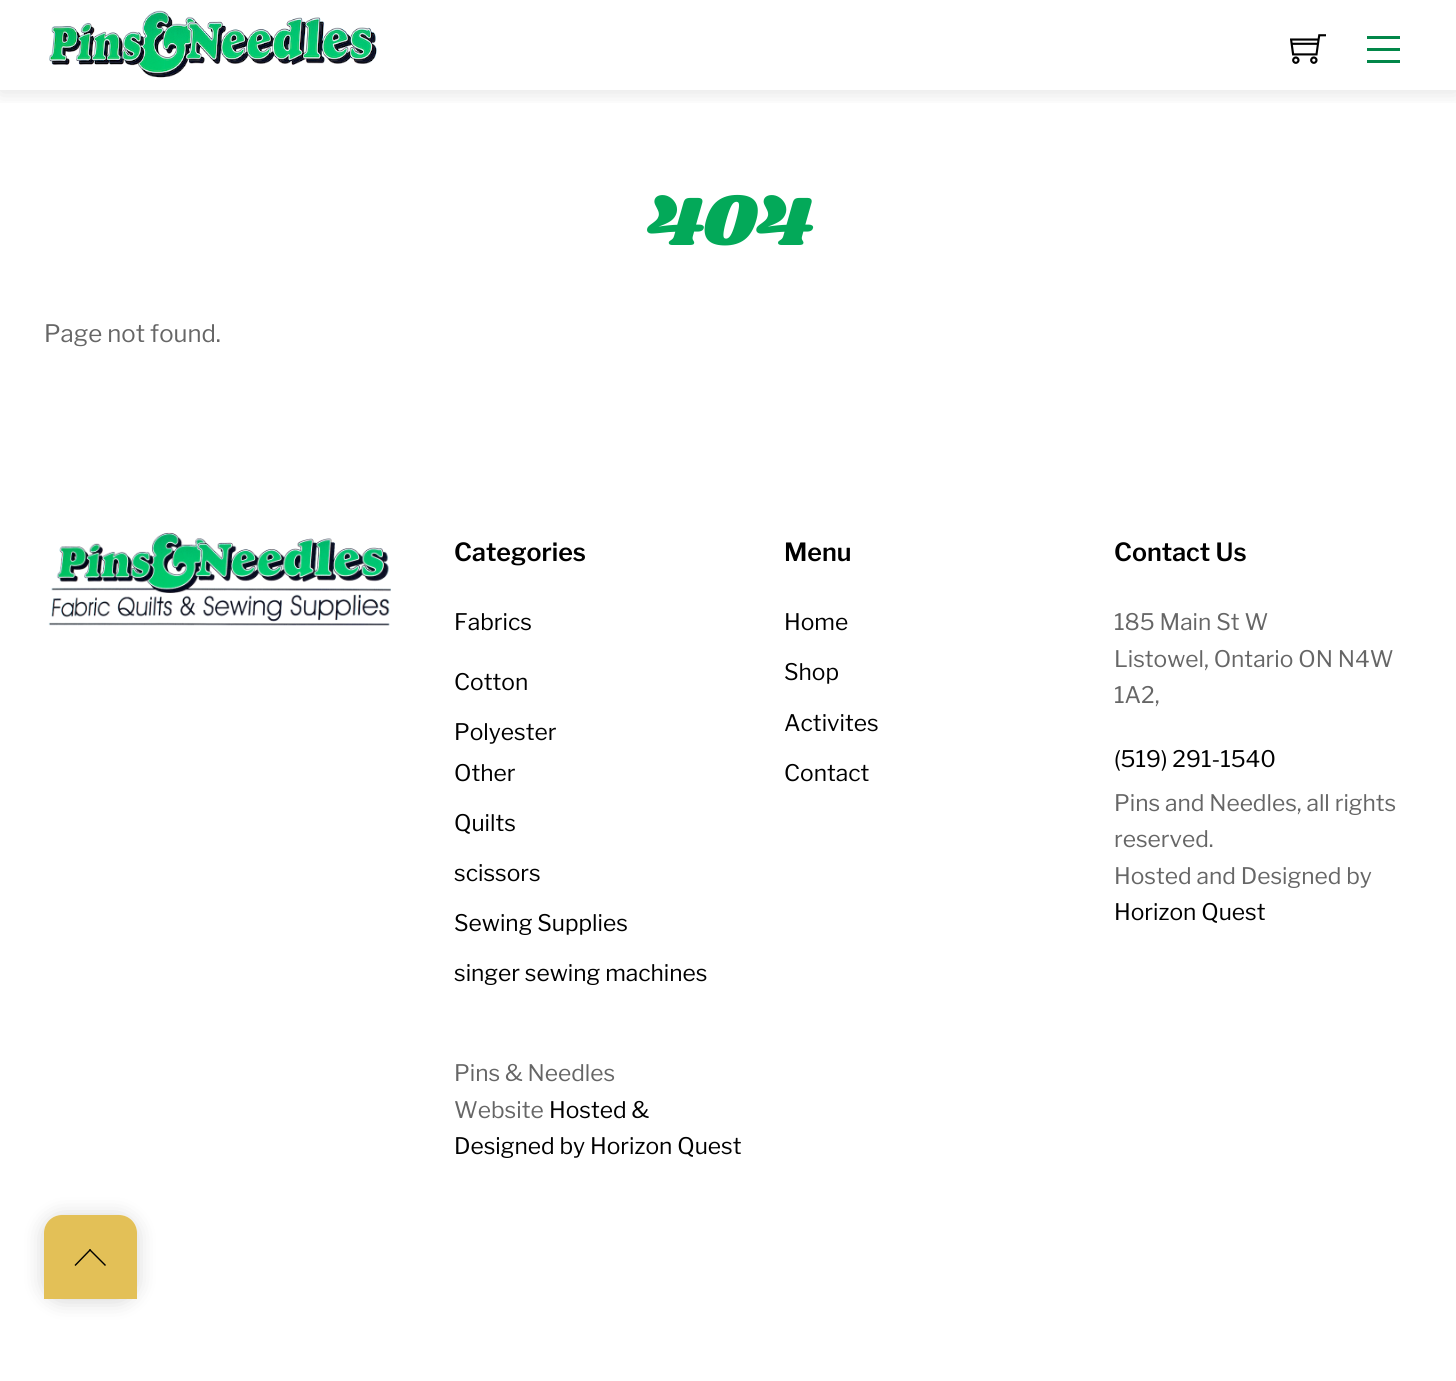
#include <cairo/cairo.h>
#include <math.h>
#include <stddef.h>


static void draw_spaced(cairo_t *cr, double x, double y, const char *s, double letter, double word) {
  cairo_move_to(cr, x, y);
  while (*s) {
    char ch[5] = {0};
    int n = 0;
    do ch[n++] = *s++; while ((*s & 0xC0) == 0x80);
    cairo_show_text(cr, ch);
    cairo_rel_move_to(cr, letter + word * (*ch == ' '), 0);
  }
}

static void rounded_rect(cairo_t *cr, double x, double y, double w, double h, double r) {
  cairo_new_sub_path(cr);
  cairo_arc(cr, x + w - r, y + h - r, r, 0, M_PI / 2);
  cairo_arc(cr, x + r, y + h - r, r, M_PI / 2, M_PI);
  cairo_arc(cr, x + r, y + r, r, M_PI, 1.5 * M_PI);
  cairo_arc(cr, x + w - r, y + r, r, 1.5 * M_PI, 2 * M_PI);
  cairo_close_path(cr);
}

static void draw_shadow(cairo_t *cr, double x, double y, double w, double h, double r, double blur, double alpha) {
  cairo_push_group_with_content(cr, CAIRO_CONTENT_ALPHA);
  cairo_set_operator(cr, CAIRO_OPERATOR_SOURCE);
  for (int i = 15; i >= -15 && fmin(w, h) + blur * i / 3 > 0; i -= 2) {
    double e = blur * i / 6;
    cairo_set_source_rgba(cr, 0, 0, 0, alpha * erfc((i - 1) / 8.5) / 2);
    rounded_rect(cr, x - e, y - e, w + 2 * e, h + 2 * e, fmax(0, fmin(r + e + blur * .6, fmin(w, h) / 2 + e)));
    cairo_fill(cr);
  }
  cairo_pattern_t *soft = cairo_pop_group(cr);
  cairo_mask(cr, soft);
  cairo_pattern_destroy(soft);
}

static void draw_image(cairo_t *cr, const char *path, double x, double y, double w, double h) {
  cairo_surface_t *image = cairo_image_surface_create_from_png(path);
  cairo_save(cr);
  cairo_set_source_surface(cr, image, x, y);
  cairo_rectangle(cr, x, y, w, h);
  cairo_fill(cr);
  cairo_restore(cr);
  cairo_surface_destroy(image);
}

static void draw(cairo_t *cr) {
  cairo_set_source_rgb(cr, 1, 1, 1);
  cairo_paint(cr);
  cairo_save(cr);
  cairo_rectangle(cr, 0, 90, 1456, 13);
  cairo_clip(cr);
  cairo_set_source_rgb(cr, 0, 0, 0);
  draw_shadow(cr, 0, 2, 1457, 90, 0, 11, 0.12);
  cairo_restore(cr);
  draw_image(cr, "images/1.png", 49, 10, 328, 68);
  draw_image(cr, "images/2.png", 1290, 34, 36, 30);
  cairo_set_source_rgb(cr, 2 / 255.0, 135 / 255.0, 73 / 255.0);
  cairo_rectangle(cr, 1367, 36, 33, 3);
  cairo_fill(cr);
  cairo_rectangle(cr, 1367, 60, 33, 3);
  cairo_fill(cr);
  cairo_rectangle(cr, 1367, 48, 33, 3);
  cairo_fill(cr);
  draw_image(cr, "images/3.png", 48, 532, 343, 94);
  cairo_save(cr);
  cairo_set_fill_rule(cr, CAIRO_FILL_RULE_EVEN_ODD);
  cairo_new_path(cr);
  cairo_move_to(cr, 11, 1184);
  cairo_line_to(cr, 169, 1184);
  cairo_line_to(cr, 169, 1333);
  cairo_line_to(cr, 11, 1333);
  cairo_close_path(cr);
  cairo_move_to(cr, 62, 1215);
  cairo_line_to(cr, 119, 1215);
  cairo_curve_to(cr, 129, 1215, 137, 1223, 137, 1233);
  cairo_line_to(cr, 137, 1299);
  cairo_line_to(cr, 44, 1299);
  cairo_line_to(cr, 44, 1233);
  cairo_curve_to(cr, 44, 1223, 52, 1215, 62, 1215);
  cairo_close_path(cr);
  cairo_clip(cr);
  cairo_set_source_rgb(cr, 0, 0, 0);
  draw_shadow(cr, 42, 1215, 96, 87, 20, 10, 0.15);
  cairo_restore(cr);
  cairo_set_source_rgba(cr, 220 / 255.0, 176 / 255.0, 46 / 255.0, 0.8);
  cairo_new_path(cr);
  cairo_move_to(cr, 62, 1215);
  cairo_line_to(cr, 119, 1215);
  cairo_curve_to(cr, 129, 1215, 137, 1223, 137, 1233);
  cairo_line_to(cr, 137, 1299);
  cairo_line_to(cr, 44, 1299);
  cairo_line_to(cr, 44, 1233);
  cairo_curve_to(cr, 44, 1223, 52, 1215, 62, 1215);
  cairo_close_path(cr);
  cairo_fill(cr);
  cairo_set_source_rgb(cr, 0, 0, 0);
  cairo_new_path(cr);
  cairo_move_to(cr, 75.5, 1266);
  cairo_line_to(cr, 74.5, 1265);
  cairo_line_to(cr, 90, 1249);
  cairo_line_to(cr, 91, 1250);
  cairo_close_path(cr);
  cairo_fill(cr);
  cairo_new_path(cr);
  cairo_move_to(cr, 105, 1266);
  cairo_line_to(cr, 89, 1250);
  cairo_line_to(cr, 90, 1249);
  cairo_line_to(cr, 106, 1265);
  cairo_close_path(cr);
  cairo_fill(cr);
  cairo_select_font_face(cr, "Shrikhand", CAIRO_FONT_SLANT_NORMAL, CAIRO_FONT_WEIGHT_NORMAL);
  cairo_set_font_size(cr, 75);
  cairo_set_source_rgb(cr, 3 / 255.0, 169 / 255.0, 89 / 255.0);
  draw_spaced(cr, 645, 245, "404", -1.5, 0);
  cairo_select_font_face(cr, "Libre Franklin", CAIRO_FONT_SLANT_NORMAL, CAIRO_FONT_WEIGHT_NORMAL);
  cairo_set_font_size(cr, 24);
  cairo_set_source_rgb(cr, 102 / 255.0, 102 / 255.0, 102 / 255.0);
  cairo_move_to(cr, 44, 342);
  cairo_show_text(cr, "Page not found.");
  cairo_select_font_face(cr, "Libre Franklin SemiBold", CAIRO_FONT_SLANT_NORMAL, CAIRO_FONT_WEIGHT_NORMAL);
  cairo_set_font_size(cr, 25);
  cairo_set_source_rgb(cr, 0, 0, 0);
  cairo_move_to(cr, 454, 561);
  cairo_show_text(cr, "Categories");
  cairo_select_font_face(cr, "Libre Franklin", CAIRO_FONT_SLANT_NORMAL, CAIRO_FONT_WEIGHT_NORMAL);
  cairo_set_font_size(cr, 22.75);
  cairo_move_to(cr, 454, 630);
  cairo_show_text(cr, "Fabrics");
  cairo_move_to(cr, 454, 690);
  cairo_show_text(cr, "Cotton");
  cairo_move_to(cr, 454, 740);
  cairo_show_text(cr, "Polyester");
  cairo_move_to(cr, 454, 781);
  cairo_show_text(cr, "Other");
  cairo_move_to(cr, 454, 831);
  cairo_show_text(cr, "Quilts");
  cairo_move_to(cr, 454, 881);
  cairo_show_text(cr, "scissors");
  cairo_move_to(cr, 454, 931);
  cairo_show_text(cr, "Sewing Supplies");
  cairo_move_to(cr, 454, 981);
  cairo_show_text(cr, "singer sewing machines");
  cairo_set_source_rgb(cr, 102 / 255.0, 102 / 255.0, 102 / 255.0);
  cairo_move_to(cr, 454, 1081);
  cairo_show_text(cr, "Pins & Needles");
  cairo_move_to(cr, 454, 1118);
  cairo_show_text(cr, "Website");
  cairo_set_source_rgb(cr, 0, 0, 0);
  cairo_move_to(cr, 549, 1118);
  cairo_show_text(cr, "Hosted &");
  cairo_move_to(cr, 454, 1154);
  cairo_show_text(cr, "Designed by Horizon Quest");
  cairo_select_font_face(cr, "Libre Franklin SemiBold", CAIRO_FONT_SLANT_NORMAL, CAIRO_FONT_WEIGHT_NORMAL);
  cairo_set_font_size(cr, 25);
  cairo_move_to(cr, 784, 561);
  cairo_show_text(cr, "Menu");
  cairo_select_font_face(cr, "Libre Franklin", CAIRO_FONT_SLANT_NORMAL, CAIRO_FONT_WEIGHT_NORMAL);
  cairo_set_font_size(cr, 22.75);
  cairo_move_to(cr, 784, 630);
  cairo_show_text(cr, "Home");
  cairo_move_to(cr, 784, 680);
  cairo_show_text(cr, "Shop");
  cairo_move_to(cr, 784, 731);
  cairo_show_text(cr, "Activites");
  cairo_move_to(cr, 784, 781);
  cairo_show_text(cr, "Contact");
  cairo_select_font_face(cr, "Libre Franklin SemiBold", CAIRO_FONT_SLANT_NORMAL, CAIRO_FONT_WEIGHT_NORMAL);
  cairo_set_font_size(cr, 25);
  cairo_move_to(cr, 1114, 561);
  cairo_show_text(cr, "Contact Us");
  cairo_select_font_face(cr, "Libre Franklin", CAIRO_FONT_SLANT_NORMAL, CAIRO_FONT_WEIGHT_NORMAL);
  cairo_set_font_size(cr, 22.75);
  cairo_set_source_rgb(cr, 102 / 255.0, 102 / 255.0, 102 / 255.0);
  cairo_move_to(cr, 1114, 630);
  cairo_show_text(cr, "185 Main St W");
  cairo_move_to(cr, 1114, 667);
  cairo_show_text(cr, "Listowel, Ontario ON N4W");
  cairo_move_to(cr, 1114, 703);
  cairo_show_text(cr, "1A2,");
  cairo_set_source_rgb(cr, 0, 0, 0);
  cairo_move_to(cr, 1114, 767);
  cairo_show_text(cr, "(519) 291-1540");
  cairo_set_source_rgb(cr, 102 / 255.0, 102 / 255.0, 102 / 255.0);
  cairo_move_to(cr, 1114, 811);
  cairo_show_text(cr, "Pins and Needles, all rights");
  cairo_move_to(cr, 1114, 847);
  cairo_show_text(cr, "reserved.");
  cairo_move_to(cr, 1114, 884);
  cairo_show_text(cr, "Hosted and Designed by");
  cairo_set_source_rgb(cr, 0, 0, 0);
  cairo_move_to(cr, 1114, 920);
  cairo_show_text(cr, "Horizon Quest");
}

int main(void) {
  cairo_surface_t *surface = cairo_image_surface_create(CAIRO_FORMAT_RGB24, 1456, 1381);
  cairo_t *cr = cairo_create(surface);
  cairo_font_options_t *options = cairo_font_options_create();
  cairo_font_options_set_hint_metrics(options, CAIRO_HINT_METRICS_OFF);
  cairo_font_options_set_hint_style(options, CAIRO_HINT_STYLE_NONE);
  cairo_set_font_options(cr, options);
  cairo_set_miter_limit(cr, 4);
  draw(cr);
  cairo_surface_write_to_png(surface, "out.png");
  cairo_font_options_destroy(options);
  cairo_destroy(cr);
  cairo_surface_destroy(surface);
  return 0;
}
